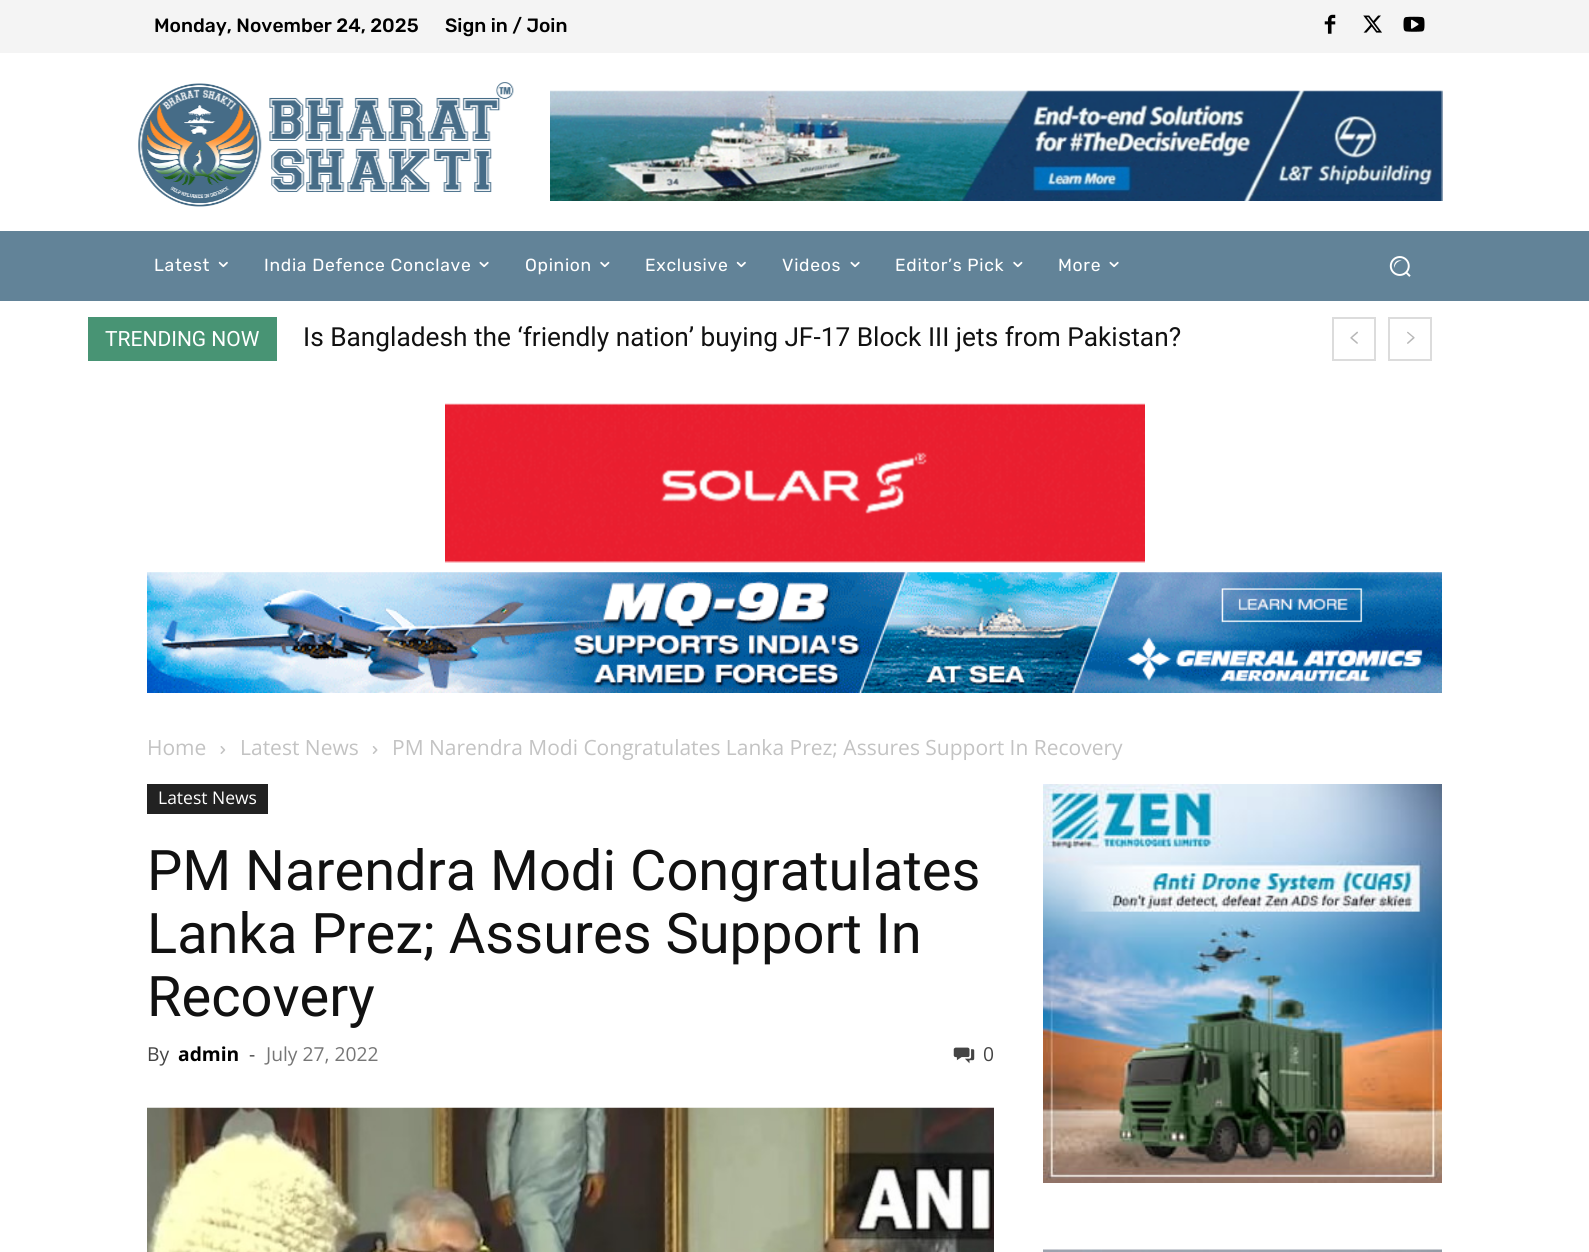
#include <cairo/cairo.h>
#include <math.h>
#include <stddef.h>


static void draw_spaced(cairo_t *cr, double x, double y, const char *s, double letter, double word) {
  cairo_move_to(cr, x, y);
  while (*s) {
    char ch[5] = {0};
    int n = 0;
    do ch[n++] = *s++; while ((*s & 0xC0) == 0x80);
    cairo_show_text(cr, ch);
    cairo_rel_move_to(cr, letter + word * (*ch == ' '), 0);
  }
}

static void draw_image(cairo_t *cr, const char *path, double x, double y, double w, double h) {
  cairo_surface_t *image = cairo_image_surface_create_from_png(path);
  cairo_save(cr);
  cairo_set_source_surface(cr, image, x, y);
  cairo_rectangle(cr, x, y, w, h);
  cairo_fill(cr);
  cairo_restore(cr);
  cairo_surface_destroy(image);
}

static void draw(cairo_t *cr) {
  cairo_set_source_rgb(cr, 1, 1, 1);
  cairo_paint(cr);
  cairo_set_source_rgb(cr, 244 / 255.0, 244 / 255.0, 244 / 255.0);
  cairo_rectangle(cr, 0, 0, 1589, 53);
  cairo_fill(cr);
  draw_image(cr, "images/1.png", 1324, 14, 12, 20);
  draw_image(cr, "images/2.png", 1363, 15, 19, 18);
  draw_image(cr, "images/3.png", 1403, 16, 22, 16);
  draw_image(cr, "images/4.png", 138, 82, 376, 125);
  draw_image(cr, "images/5.png", 550, 90, 893, 111);
  cairo_set_source_rgb(cr, 98 / 255.0, 131 / 255.0, 152 / 255.0);
  cairo_rectangle(cr, 0, 231, 1589, 70);
  cairo_fill(cr);
  draw_image(cr, "images/6.png", 218, 261, 10, 7);
  draw_image(cr, "images/7.png", 479, 261, 10, 7);
  draw_image(cr, "images/8.png", 600, 261, 10, 7);
  draw_image(cr, "images/6.png", 736, 261, 10, 7);
  draw_image(cr, "images/7.png", 850, 261, 10, 7);
  draw_image(cr, "images/8.png", 1013, 261, 10, 7);
  draw_image(cr, "images/7.png", 1109, 261, 10, 7);
  draw_image(cr, "images/9.png", 1389, 256, 22, 21);
  cairo_set_source_rgb(cr, 72 / 255.0, 148 / 255.0, 116 / 255.0);
  cairo_rectangle(cr, 88, 317, 189, 44);
  cairo_fill(cr);
  cairo_rectangle(cr, 1333, 318, 42, 42);
  cairo_set_source_rgb(cr, 220 / 255.0, 220 / 255.0, 220 / 255.0);
  cairo_stroke(cr);
  draw_image(cr, "images/10.png", 1350, 331, 8, 13);
  cairo_rectangle(cr, 1389, 318, 42, 42);
  cairo_stroke(cr);
  draw_image(cr, "images/11.png", 1407, 331, 8, 13);
  draw_image(cr, "images/12.png", 445, 403, 700, 160);
  draw_image(cr, "images/13.png", 147, 572, 1295, 121);
  draw_image(cr, "images/14.png", 220, 746, 6, 8);
  draw_image(cr, "images/15.png", 372, 746, 6, 8);
  cairo_set_source_rgb(cr, 34 / 255.0, 34 / 255.0, 34 / 255.0);
  cairo_rectangle(cr, 147, 784, 121, 30);
  cairo_fill(cr);
  draw_image(cr, "images/16.png", 953, 1047, 22, 17);
  draw_image(cr, "images/17.png", 147, 1107, 847, 145);
  draw_image(cr, "images/18.png", 1043, 784, 399, 399);
  draw_image(cr, "images/19.png", 1043, 1249, 399, 3);
  cairo_select_font_face(cr, "Rubik Medium", CAIRO_FONT_SLANT_NORMAL, CAIRO_FONT_WEIGHT_NORMAL);
  cairo_set_font_size(cr, 19.25);
  cairo_set_source_rgb(cr, 0, 0, 0);
  cairo_move_to(cr, 154, 32);
  cairo_show_text(cr, "Monday, November 24, 2025");
  cairo_move_to(cr, 445, 32);
  cairo_show_text(cr, "Sign in / Join");
  cairo_select_font_face(cr, "Rubik", CAIRO_FONT_SLANT_NORMAL, CAIRO_FONT_WEIGHT_NORMAL);
  cairo_set_font_size(cr, 17.5);
  cairo_set_source_rgb(cr, 1, 1, 1);
  draw_spaced(cr, 154, 271, "Latest", 0.7, 0);
  draw_spaced(cr, 264, 271, "India Defence Conclave", 0.7, 0);
  draw_spaced(cr, 525, 271, "Opinion", 0.7, 0);
  draw_spaced(cr, 645, 271, "Exclusive", 0.7, 0);
  draw_spaced(cr, 782, 271, "Videos", 0.7, 0);
  draw_spaced(cr, 895, 271, "Editor’s Pick", 0.7, 0);
  draw_spaced(cr, 1058, 271, "More", 0.7, 0);
  cairo_select_font_face(cr, "Roboto", CAIRO_FONT_SLANT_NORMAL, CAIRO_FONT_WEIGHT_NORMAL);
  cairo_set_font_size(cr, 21);
  cairo_move_to(cr, 105, 346);
  cairo_show_text(cr, "TRENDING NOW");
  cairo_set_font_size(cr, 26.25);
  cairo_set_source_rgb(cr, 17 / 255.0, 17 / 255.0, 17 / 255.0);
  cairo_move_to(cr, 303, 346);
  cairo_show_text(cr, "Is Bangladesh the ‘friendly nation’ buying JF-17 Block III jets from Pakistan?");
  cairo_select_font_face(cr, "Open Sans", CAIRO_FONT_SLANT_NORMAL, CAIRO_FONT_WEIGHT_NORMAL);
  cairo_set_font_size(cr, 21);
  cairo_set_source_rgb(cr, 195 / 255.0, 195 / 255.0, 195 / 255.0);
  cairo_move_to(cr, 147, 755);
  cairo_show_text(cr, "Home");
  cairo_move_to(cr, 240, 755);
  cairo_show_text(cr, "Latest News");
  cairo_move_to(cr, 392, 755);
  cairo_show_text(cr, "PM Narendra Modi Congratulates Lanka Prez; Assures Support In Recovery");
  cairo_set_font_size(cr, 17.5);
  cairo_set_source_rgb(cr, 1, 1, 1);
  cairo_move_to(cr, 158, 804);
  cairo_show_text(cr, "Latest News");
  cairo_select_font_face(cr, "Roboto", CAIRO_FONT_SLANT_NORMAL, CAIRO_FONT_WEIGHT_NORMAL);
  cairo_set_font_size(cr, 56);
  cairo_set_source_rgb(cr, 17 / 255.0, 17 / 255.0, 17 / 255.0);
  cairo_move_to(cr, 147, 890);
  cairo_show_text(cr, "PM Narendra Modi Congratulates");
  cairo_move_to(cr, 147, 953);
  cairo_show_text(cr, "Lanka Prez; Assures Support In");
  cairo_move_to(cr, 147, 1016);
  cairo_show_text(cr, "Recovery");
  cairo_select_font_face(cr, "Open Sans", CAIRO_FONT_SLANT_NORMAL, CAIRO_FONT_WEIGHT_NORMAL);
  cairo_set_font_size(cr, 19.25);
  cairo_set_source_rgb(cr, 68 / 255.0, 68 / 255.0, 68 / 255.0);
  cairo_move_to(cr, 147, 1061);
  cairo_show_text(cr, "By");
  cairo_select_font_face(cr, "Open Sans", CAIRO_FONT_SLANT_NORMAL, CAIRO_FONT_WEIGHT_BOLD);
  cairo_set_source_rgb(cr, 0, 0, 0);
  cairo_move_to(cr, 178, 1061);
  cairo_show_text(cr, "admin");
  cairo_select_font_face(cr, "Open Sans", CAIRO_FONT_SLANT_NORMAL, CAIRO_FONT_WEIGHT_NORMAL);
  cairo_set_source_rgb(cr, 68 / 255.0, 68 / 255.0, 68 / 255.0);
  cairo_move_to(cr, 249, 1061);
  cairo_show_text(cr, "-");
  cairo_set_source_rgb(cr, 118 / 255.0, 118 / 255.0, 118 / 255.0);
  cairo_move_to(cr, 266, 1061);
  cairo_show_text(cr, "July 27, 2022");
  cairo_set_source_rgb(cr, 68 / 255.0, 68 / 255.0, 68 / 255.0);
  cairo_move_to(cr, 983, 1061);
  cairo_show_text(cr, "0");
}

int main(void) {
  cairo_surface_t *surface = cairo_image_surface_create(CAIRO_FORMAT_RGB24, 1589, 1252);
  cairo_t *cr = cairo_create(surface);
  cairo_font_options_t *options = cairo_font_options_create();
  cairo_font_options_set_hint_metrics(options, CAIRO_HINT_METRICS_OFF);
  cairo_font_options_set_hint_style(options, CAIRO_HINT_STYLE_NONE);
  cairo_set_font_options(cr, options);
  cairo_set_miter_limit(cr, 4);
  draw(cr);
  cairo_surface_write_to_png(surface, "out.png");
  cairo_font_options_destroy(options);
  cairo_destroy(cr);
  cairo_surface_destroy(surface);
  return 0;
}
